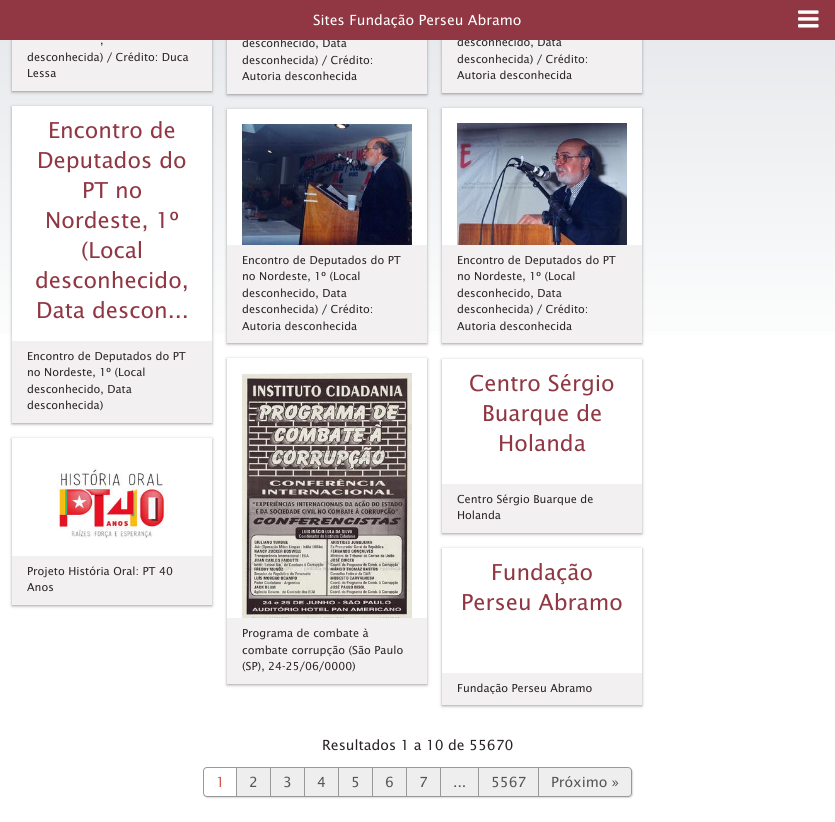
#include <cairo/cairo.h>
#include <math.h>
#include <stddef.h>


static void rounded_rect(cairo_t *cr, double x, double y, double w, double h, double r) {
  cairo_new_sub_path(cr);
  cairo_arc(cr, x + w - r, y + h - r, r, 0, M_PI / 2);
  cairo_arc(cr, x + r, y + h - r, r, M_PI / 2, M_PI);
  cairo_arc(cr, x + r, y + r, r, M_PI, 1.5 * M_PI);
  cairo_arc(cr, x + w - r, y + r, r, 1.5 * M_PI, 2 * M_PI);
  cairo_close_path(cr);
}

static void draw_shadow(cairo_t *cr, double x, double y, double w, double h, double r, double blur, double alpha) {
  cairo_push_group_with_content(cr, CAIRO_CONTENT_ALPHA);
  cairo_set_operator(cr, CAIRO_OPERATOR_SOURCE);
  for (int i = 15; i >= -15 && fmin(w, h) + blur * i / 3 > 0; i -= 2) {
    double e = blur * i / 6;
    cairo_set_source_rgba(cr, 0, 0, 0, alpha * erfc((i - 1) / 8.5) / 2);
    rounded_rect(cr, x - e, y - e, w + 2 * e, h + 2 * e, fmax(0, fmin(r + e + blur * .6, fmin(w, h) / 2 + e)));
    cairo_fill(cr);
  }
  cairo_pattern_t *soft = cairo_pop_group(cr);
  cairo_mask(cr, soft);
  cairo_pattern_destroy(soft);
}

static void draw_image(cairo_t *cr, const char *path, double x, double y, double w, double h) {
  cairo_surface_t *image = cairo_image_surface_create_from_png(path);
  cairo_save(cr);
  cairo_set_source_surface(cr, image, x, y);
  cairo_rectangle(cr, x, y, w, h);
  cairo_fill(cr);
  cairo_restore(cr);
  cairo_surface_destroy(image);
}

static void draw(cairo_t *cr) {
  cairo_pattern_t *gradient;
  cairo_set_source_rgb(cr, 1, 1, 1);
  cairo_paint(cr);
  gradient = cairo_pattern_create_linear(417, -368, 418, 822);
  cairo_pattern_add_color_stop_rgba(gradient, 0, 202 / 255.0, 207 / 255.0, 213 / 255.0, 1);
  cairo_pattern_add_color_stop_rgba(gradient, 0.62, 1, 1, 1, 1);
  cairo_set_source(cr, gradient);
  cairo_pattern_destroy(gradient);
  cairo_rectangle(cr, 0, 40, 835, 295);
  cairo_fill(cr);
  cairo_set_source_rgb(cr, 25 / 255.0, 25 / 255.0, 25 / 255.0);
  draw_shadow(cr, 12, -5, 200, 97, 0, 1.5, 0.4);
  cairo_set_source_rgb(cr, 242 / 255.0, 240 / 255.0, 240 / 255.0);
  cairo_rectangle(cr, 12, 40, 200, 51);
  cairo_fill(cr);
  cairo_set_source_rgb(cr, 25 / 255.0, 25 / 255.0, 25 / 255.0);
  draw_shadow(cr, 227, -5, 200, 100, 0, 1.5, 0.4);
  cairo_set_source_rgb(cr, 242 / 255.0, 240 / 255.0, 240 / 255.0);
  cairo_rectangle(cr, 227, 40, 200, 54);
  cairo_fill(cr);
  cairo_set_source_rgb(cr, 25 / 255.0, 25 / 255.0, 25 / 255.0);
  draw_shadow(cr, 442, -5, 200, 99, 0, 1.5, 0.4);
  cairo_set_source_rgb(cr, 242 / 255.0, 240 / 255.0, 240 / 255.0);
  cairo_rectangle(cr, 442, 40, 200, 53);
  cairo_fill(cr);
  cairo_set_source_rgb(cr, 25 / 255.0, 25 / 255.0, 25 / 255.0);
  draw_shadow(cr, 12, 107, 200, 317, 0, 1.5, 0.4);
  cairo_set_source_rgb(cr, 1, 1, 1);
  cairo_rectangle(cr, 12, 106, 200, 235);
  cairo_fill(cr);
  cairo_set_source_rgb(cr, 242 / 255.0, 240 / 255.0, 240 / 255.0);
  cairo_rectangle(cr, 12, 341, 200, 82);
  cairo_fill(cr);
  cairo_set_source_rgb(cr, 25 / 255.0, 25 / 255.0, 25 / 255.0);
  draw_shadow(cr, 227, 110, 200, 234, 0, 1.5, 0.4);
  cairo_set_source_rgb(cr, 1, 1, 1);
  cairo_rectangle(cr, 227, 109, 200, 136);
  cairo_fill(cr);
  draw_image(cr, "images/2.png", 242, 124, 170, 121);
  cairo_set_source_rgb(cr, 242 / 255.0, 240 / 255.0, 240 / 255.0);
  cairo_rectangle(cr, 227, 245, 200, 98);
  cairo_fill(cr);
  cairo_set_source_rgb(cr, 25 / 255.0, 25 / 255.0, 25 / 255.0);
  draw_shadow(cr, 442, 109, 200, 235, 0, 1.5, 0.4);
  cairo_set_source_rgb(cr, 1, 1, 1);
  cairo_rectangle(cr, 442, 108, 200, 137);
  cairo_fill(cr);
  draw_image(cr, "images/3.png", 457, 123, 170, 122);
  cairo_set_source_rgb(cr, 242 / 255.0, 240 / 255.0, 240 / 255.0);
  cairo_rectangle(cr, 442, 245, 200, 98);
  cairo_fill(cr);
  cairo_save(cr);
  cairo_set_fill_rule(cr, CAIRO_FILL_RULE_EVEN_ODD);
  cairo_new_path(cr);
  cairo_move_to(cr, 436, 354);
  cairo_line_to(cr, 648, 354);
  cairo_line_to(cr, 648, 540);
  cairo_line_to(cr, 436, 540);
  cairo_close_path(cr);
  cairo_move_to(cr, 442, 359);
  cairo_line_to(cr, 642, 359);
  cairo_line_to(cr, 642, 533);
  cairo_line_to(cr, 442, 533);
  cairo_close_path(cr);
  cairo_clip(cr);
  cairo_set_source_rgb(cr, 25 / 255.0, 25 / 255.0, 25 / 255.0);
  draw_shadow(cr, 442, 360, 200, 174, 0, 1.5, 0.4);
  cairo_restore(cr);
  cairo_rectangle(cr, 442, 484, 200, 49);
  cairo_fill(cr);
  cairo_save(cr);
  cairo_set_fill_rule(cr, CAIRO_FILL_RULE_EVEN_ODD);
  cairo_new_path(cr);
  cairo_move_to(cr, 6, 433);
  cairo_line_to(cr, 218, 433);
  cairo_line_to(cr, 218, 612);
  cairo_line_to(cr, 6, 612);
  cairo_close_path(cr);
  cairo_move_to(cr, 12, 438);
  cairo_line_to(cr, 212, 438);
  cairo_line_to(cr, 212, 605);
  cairo_line_to(cr, 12, 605);
  cairo_close_path(cr);
  cairo_clip(cr);
  cairo_set_source_rgb(cr, 25 / 255.0, 25 / 255.0, 25 / 255.0);
  draw_shadow(cr, 12, 439, 200, 167, 0, 1.5, 0.4);
  cairo_restore(cr);
  draw_image(cr, "images/4.png", 57, 468, 111, 71);
  cairo_rectangle(cr, 12, 556, 200, 49);
  cairo_fill(cr);
  cairo_save(cr);
  cairo_set_fill_rule(cr, CAIRO_FILL_RULE_EVEN_ODD);
  cairo_new_path(cr);
  cairo_move_to(cr, 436, 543);
  cairo_line_to(cr, 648, 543);
  cairo_line_to(cr, 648, 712);
  cairo_line_to(cr, 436, 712);
  cairo_close_path(cr);
  cairo_move_to(cr, 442, 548);
  cairo_line_to(cr, 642, 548);
  cairo_line_to(cr, 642, 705);
  cairo_line_to(cr, 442, 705);
  cairo_close_path(cr);
  cairo_clip(cr);
  cairo_set_source_rgb(cr, 25 / 255.0, 25 / 255.0, 25 / 255.0);
  draw_shadow(cr, 442, 549, 200, 157, 0, 1.5, 0.4);
  cairo_restore(cr);
  cairo_rectangle(cr, 442, 673, 200, 32);
  cairo_fill(cr);
  cairo_save(cr);
  cairo_set_fill_rule(cr, CAIRO_FILL_RULE_EVEN_ODD);
  cairo_new_path(cr);
  cairo_move_to(cr, 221, 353);
  cairo_line_to(cr, 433, 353);
  cairo_line_to(cr, 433, 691);
  cairo_line_to(cr, 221, 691);
  cairo_close_path(cr);
  cairo_move_to(cr, 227, 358);
  cairo_line_to(cr, 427, 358);
  cairo_line_to(cr, 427, 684);
  cairo_line_to(cr, 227, 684);
  cairo_close_path(cr);
  cairo_clip(cr);
  cairo_set_source_rgb(cr, 25 / 255.0, 25 / 255.0, 25 / 255.0);
  draw_shadow(cr, 227, 359, 200, 326, 0, 1.5, 0.4);
  cairo_restore(cr);
  draw_image(cr, "images/5.png", 242, 373, 170, 245);
  cairo_rectangle(cr, 227, 618, 200, 66);
  cairo_fill(cr);
  cairo_set_source_rgb(cr, 25 / 255.0, 25 / 255.0, 25 / 255.0);
  draw_shadow(cr, 204, 768, 429, 30, 4, 0.5, 0.15);
  cairo_set_source_rgb(cr, 1, 1, 1);
  cairo_new_path(cr);
  cairo_move_to(cr, 207, 767.5);
  cairo_line_to(cr, 236.5, 767.5);
  cairo_line_to(cr, 236.5, 796.5);
  cairo_line_to(cr, 207, 796.5);
  cairo_curve_to(cr, 205, 796.5, 203.5, 795, 203.5, 793);
  cairo_line_to(cr, 203.5, 771);
  cairo_curve_to(cr, 203.5, 769, 205, 767.5, 207, 767.5);
  cairo_close_path(cr);
  cairo_fill_preserve(cr);
  cairo_set_source_rgb(cr, 153 / 255.0, 153 / 255.0, 153 / 255.0);
  cairo_set_line_width(cr, 1);
  cairo_stroke(cr);
  cairo_set_source_rgb(cr, 238 / 255.0, 238 / 255.0, 238 / 255.0);
  cairo_rectangle(cr, 237, 768, 33, 28);
  cairo_fill(cr);
  cairo_set_source_rgb(cr, 153 / 255.0, 153 / 255.0, 153 / 255.0);
  cairo_rectangle(cr, 237, 767, 302, 1);
  cairo_fill(cr);
  cairo_rectangle(cr, 270, 767, 1, 30);
  cairo_fill(cr);
  cairo_rectangle(cr, 237, 796, 34, 1);
  cairo_fill(cr);
  cairo_set_source_rgb(cr, 238 / 255.0, 238 / 255.0, 238 / 255.0);
  cairo_rectangle(cr, 271, 768, 33, 28);
  cairo_fill(cr);
  cairo_set_source_rgb(cr, 153 / 255.0, 153 / 255.0, 153 / 255.0);
  cairo_rectangle(cr, 304, 767, 1, 30);
  cairo_fill(cr);
  cairo_rectangle(cr, 271, 796, 34, 1);
  cairo_fill(cr);
  cairo_set_source_rgb(cr, 238 / 255.0, 238 / 255.0, 238 / 255.0);
  cairo_rectangle(cr, 305, 768, 33, 28);
  cairo_fill(cr);
  cairo_set_source_rgb(cr, 153 / 255.0, 153 / 255.0, 153 / 255.0);
  cairo_rectangle(cr, 338, 767, 1, 30);
  cairo_fill(cr);
  cairo_rectangle(cr, 305, 796, 34, 1);
  cairo_fill(cr);
  cairo_set_source_rgb(cr, 238 / 255.0, 238 / 255.0, 238 / 255.0);
  cairo_rectangle(cr, 339, 768, 33, 28);
  cairo_fill(cr);
  cairo_set_source_rgb(cr, 153 / 255.0, 153 / 255.0, 153 / 255.0);
  cairo_rectangle(cr, 372, 767, 1, 30);
  cairo_fill(cr);
  cairo_rectangle(cr, 339, 796, 34, 1);
  cairo_fill(cr);
  cairo_set_source_rgb(cr, 238 / 255.0, 238 / 255.0, 238 / 255.0);
  cairo_rectangle(cr, 373, 768, 33, 28);
  cairo_fill(cr);
  cairo_set_source_rgb(cr, 153 / 255.0, 153 / 255.0, 153 / 255.0);
  cairo_rectangle(cr, 406, 767, 1, 30);
  cairo_fill(cr);
  cairo_rectangle(cr, 373, 796, 34, 1);
  cairo_fill(cr);
  cairo_set_source_rgb(cr, 238 / 255.0, 238 / 255.0, 238 / 255.0);
  cairo_rectangle(cr, 407, 768, 33, 28);
  cairo_fill(cr);
  cairo_set_source_rgb(cr, 153 / 255.0, 153 / 255.0, 153 / 255.0);
  cairo_rectangle(cr, 440, 767, 1, 30);
  cairo_fill(cr);
  cairo_rectangle(cr, 407, 796, 34, 1);
  cairo_fill(cr);
  cairo_set_source_rgb(cr, 238 / 255.0, 238 / 255.0, 238 / 255.0);
  cairo_rectangle(cr, 441, 768, 37, 28);
  cairo_fill(cr);
  cairo_set_source_rgb(cr, 153 / 255.0, 153 / 255.0, 153 / 255.0);
  cairo_rectangle(cr, 478, 767, 1, 30);
  cairo_fill(cr);
  cairo_rectangle(cr, 441, 796, 38, 1);
  cairo_fill(cr);
  cairo_set_source_rgb(cr, 238 / 255.0, 238 / 255.0, 238 / 255.0);
  cairo_rectangle(cr, 479, 768, 59, 28);
  cairo_fill(cr);
  cairo_set_source_rgb(cr, 153 / 255.0, 153 / 255.0, 153 / 255.0);
  cairo_rectangle(cr, 538, 767, 1, 30);
  cairo_fill(cr);
  cairo_rectangle(cr, 479, 796, 60, 1);
  cairo_fill(cr);
  cairo_set_source_rgb(cr, 238 / 255.0, 238 / 255.0, 238 / 255.0);
  cairo_new_path(cr);
  cairo_move_to(cr, 539, 768);
  cairo_line_to(cr, 628, 768);
  cairo_curve_to(cr, 629.5, 768, 631, 769.5, 631, 771);
  cairo_line_to(cr, 631, 793);
  cairo_curve_to(cr, 631, 794.5, 629.5, 796, 628, 796);
  cairo_line_to(cr, 539, 796);
  cairo_close_path(cr);
  cairo_fill(cr);
  cairo_set_source_rgb(cr, 153 / 255.0, 153 / 255.0, 153 / 255.0);
  cairo_set_fill_rule(cr, CAIRO_FILL_RULE_EVEN_ODD);
  cairo_new_path(cr);
  cairo_move_to(cr, 539, 767);
  cairo_line_to(cr, 628, 767);
  cairo_curve_to(cr, 630, 767, 632, 769, 632, 771);
  cairo_line_to(cr, 632, 793);
  cairo_curve_to(cr, 632, 795, 630, 797, 628, 797);
  cairo_line_to(cr, 539, 797);
  cairo_close_path(cr);
  cairo_move_to(cr, 539, 768);
  cairo_line_to(cr, 628, 768);
  cairo_curve_to(cr, 630, 768, 631, 769, 631, 771);
  cairo_line_to(cr, 631, 793);
  cairo_curve_to(cr, 631, 795, 630, 796, 628, 796);
  cairo_line_to(cr, 539, 796);
  cairo_close_path(cr);
  cairo_fill(cr);
  cairo_select_font_face(cr, "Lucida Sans", CAIRO_FONT_SLANT_NORMAL, CAIRO_FONT_WEIGHT_NORMAL);
  cairo_set_font_size(cr, 11);
  cairo_set_source_rgb(cr, 42 / 255.0, 36 / 255.0, 38 / 255.0);
  cairo_move_to(cr, 100, 44);
  cairo_show_text(cr, ",");
  cairo_move_to(cr, 27, 61);
  cairo_show_text(cr, "desconhecida) / Crédito: Duca");
  cairo_move_to(cr, 27, 77);
  cairo_show_text(cr, "Lessa");
  cairo_move_to(cr, 242, 47);
  cairo_show_text(cr, "desconhecido, Data");
  cairo_move_to(cr, 242, 64);
  cairo_show_text(cr, "desconhecida) / Crédito:");
  cairo_move_to(cr, 242, 80);
  cairo_show_text(cr, "Autoria desconhecida");
  cairo_move_to(cr, 457, 46);
  cairo_show_text(cr, "desconhecido, Data");
  cairo_set_source_rgb(cr, 144 / 255.0, 55 / 255.0, 67 / 255.0);
  cairo_rectangle(cr, 0, 0, 835, 40);
  cairo_fill(cr);
  draw_image(cr, "images/1.png", 798, 10, 21, 18);
  cairo_set_font_size(cr, 14);
  cairo_set_source_rgb(cr, 1, 1, 1);
  cairo_move_to(cr, 313, 25);
  cairo_show_text(cr, "Sites Fundação Perseu Abramo");
  cairo_set_font_size(cr, 11);
  cairo_set_source_rgb(cr, 42 / 255.0, 36 / 255.0, 38 / 255.0);
  cairo_move_to(cr, 457, 63);
  cairo_show_text(cr, "desconhecida) / Crédito:");
  cairo_move_to(cr, 457, 79);
  cairo_show_text(cr, "Autoria desconhecida");
  cairo_set_font_size(cr, 22);
  cairo_set_source_rgb(cr, 144 / 255.0, 55 / 255.0, 67 / 255.0);
  cairo_move_to(cr, 48, 138);
  cairo_show_text(cr, "Encontro de");
  cairo_move_to(cr, 37, 168);
  cairo_show_text(cr, "Deputados do");
  cairo_move_to(cr, 82, 198);
  cairo_show_text(cr, "PT no");
  cairo_move_to(cr, 45, 228);
  cairo_show_text(cr, "Nordeste, 1º");
  cairo_move_to(cr, 81, 258);
  cairo_show_text(cr, "(Local");
  cairo_move_to(cr, 35, 288);
  cairo_show_text(cr, "desconhecido,");
  cairo_move_to(cr, 36, 318);
  cairo_show_text(cr, "Data descon...");
  cairo_set_font_size(cr, 11);
  cairo_set_source_rgb(cr, 42 / 255.0, 36 / 255.0, 38 / 255.0);
  cairo_move_to(cr, 27, 360);
  cairo_show_text(cr, "Encontro de Deputados do PT");
  cairo_move_to(cr, 27, 376);
  cairo_show_text(cr, "no Nordeste, 1º (Local");
  cairo_move_to(cr, 27, 393);
  cairo_show_text(cr, "desconhecido, Data");
  cairo_move_to(cr, 27, 409);
  cairo_show_text(cr, "desconhecida)");
  cairo_move_to(cr, 242, 264);
  cairo_show_text(cr, "Encontro de Deputados do PT");
  cairo_move_to(cr, 242, 280);
  cairo_show_text(cr, "no Nordeste, 1º (Local");
  cairo_move_to(cr, 242, 297);
  cairo_show_text(cr, "desconhecido, Data");
  cairo_move_to(cr, 242, 313);
  cairo_show_text(cr, "desconhecida) / Crédito:");
  cairo_move_to(cr, 242, 330);
  cairo_show_text(cr, "Autoria desconhecida");
  cairo_move_to(cr, 457, 264);
  cairo_show_text(cr, "Encontro de Deputados do PT");
  cairo_move_to(cr, 457, 280);
  cairo_show_text(cr, "no Nordeste, 1º (Local");
  cairo_move_to(cr, 457, 297);
  cairo_show_text(cr, "desconhecido, Data");
  cairo_move_to(cr, 457, 313);
  cairo_show_text(cr, "desconhecida) / Crédito:");
  cairo_move_to(cr, 457, 330);
  cairo_show_text(cr, "Autoria desconhecida");
  cairo_set_font_size(cr, 22);
  cairo_set_source_rgb(cr, 144 / 255.0, 55 / 255.0, 67 / 255.0);
  cairo_move_to(cr, 469, 391);
  cairo_show_text(cr, "Centro Sérgio");
  cairo_move_to(cr, 482, 421);
  cairo_show_text(cr, "Buarque de");
  cairo_move_to(cr, 498, 451);
  cairo_show_text(cr, "Holanda");
  cairo_set_font_size(cr, 11);
  cairo_set_source_rgb(cr, 42 / 255.0, 36 / 255.0, 38 / 255.0);
  cairo_move_to(cr, 457, 503);
  cairo_show_text(cr, "Centro Sérgio Buarque de");
  cairo_move_to(cr, 457, 519);
  cairo_show_text(cr, "Holanda");
  cairo_move_to(cr, 27, 575);
  cairo_show_text(cr, "Projeto História Oral: PT 40");
  cairo_move_to(cr, 27, 591);
  cairo_show_text(cr, "Anos");
  cairo_set_font_size(cr, 22);
  cairo_set_source_rgb(cr, 144 / 255.0, 55 / 255.0, 67 / 255.0);
  cairo_move_to(cr, 491, 580);
  cairo_show_text(cr, "Fundação");
  cairo_move_to(cr, 461, 610);
  cairo_show_text(cr, "Perseu Abramo");
  cairo_set_font_size(cr, 11);
  cairo_set_source_rgb(cr, 42 / 255.0, 36 / 255.0, 38 / 255.0);
  cairo_move_to(cr, 457, 692);
  cairo_show_text(cr, "Fundação Perseu Abramo");
  cairo_move_to(cr, 242, 637);
  cairo_show_text(cr, "Programa de combate à");
  cairo_move_to(cr, 242, 654);
  cairo_show_text(cr, "combate corrupção (São Paulo");
  cairo_move_to(cr, 242, 670);
  cairo_show_text(cr, "(SP), 24-25/06/0000)");
  cairo_set_font_size(cr, 14);
  cairo_move_to(cr, 322, 750);
  cairo_show_text(cr, "Resultados 1 a 10 de 55670");
  cairo_set_source_rgb(cr, 216 / 255.0, 85 / 255.0, 74 / 255.0);
  cairo_move_to(cr, 216, 787);
  cairo_show_text(cr, "1");
  cairo_set_source_rgb(cr, 85 / 255.0, 85 / 255.0, 85 / 255.0);
  cairo_move_to(cr, 249, 787);
  cairo_show_text(cr, "2");
  cairo_move_to(cr, 283, 787);
  cairo_show_text(cr, "3");
  cairo_move_to(cr, 317, 787);
  cairo_show_text(cr, "4");
  cairo_move_to(cr, 351, 787);
  cairo_show_text(cr, "5");
  cairo_move_to(cr, 385, 787);
  cairo_show_text(cr, "6");
  cairo_move_to(cr, 419, 787);
  cairo_show_text(cr, "7");
  cairo_move_to(cr, 453, 787);
  cairo_show_text(cr, "...");
  cairo_move_to(cr, 491, 787);
  cairo_show_text(cr, "5567");
  cairo_move_to(cr, 551, 787);
  cairo_show_text(cr, "Próximo »");
}

int main(void) {
  cairo_surface_t *surface = cairo_image_surface_create(CAIRO_FORMAT_RGB24, 835, 822);
  cairo_t *cr = cairo_create(surface);
  cairo_font_options_t *options = cairo_font_options_create();
  cairo_font_options_set_hint_metrics(options, CAIRO_HINT_METRICS_OFF);
  cairo_font_options_set_hint_style(options, CAIRO_HINT_STYLE_NONE);
  cairo_set_font_options(cr, options);
  cairo_set_miter_limit(cr, 4);
  draw(cr);
  cairo_surface_write_to_png(surface, "out.png");
  cairo_font_options_destroy(options);
  cairo_destroy(cr);
  cairo_surface_destroy(surface);
  return 0;
}
